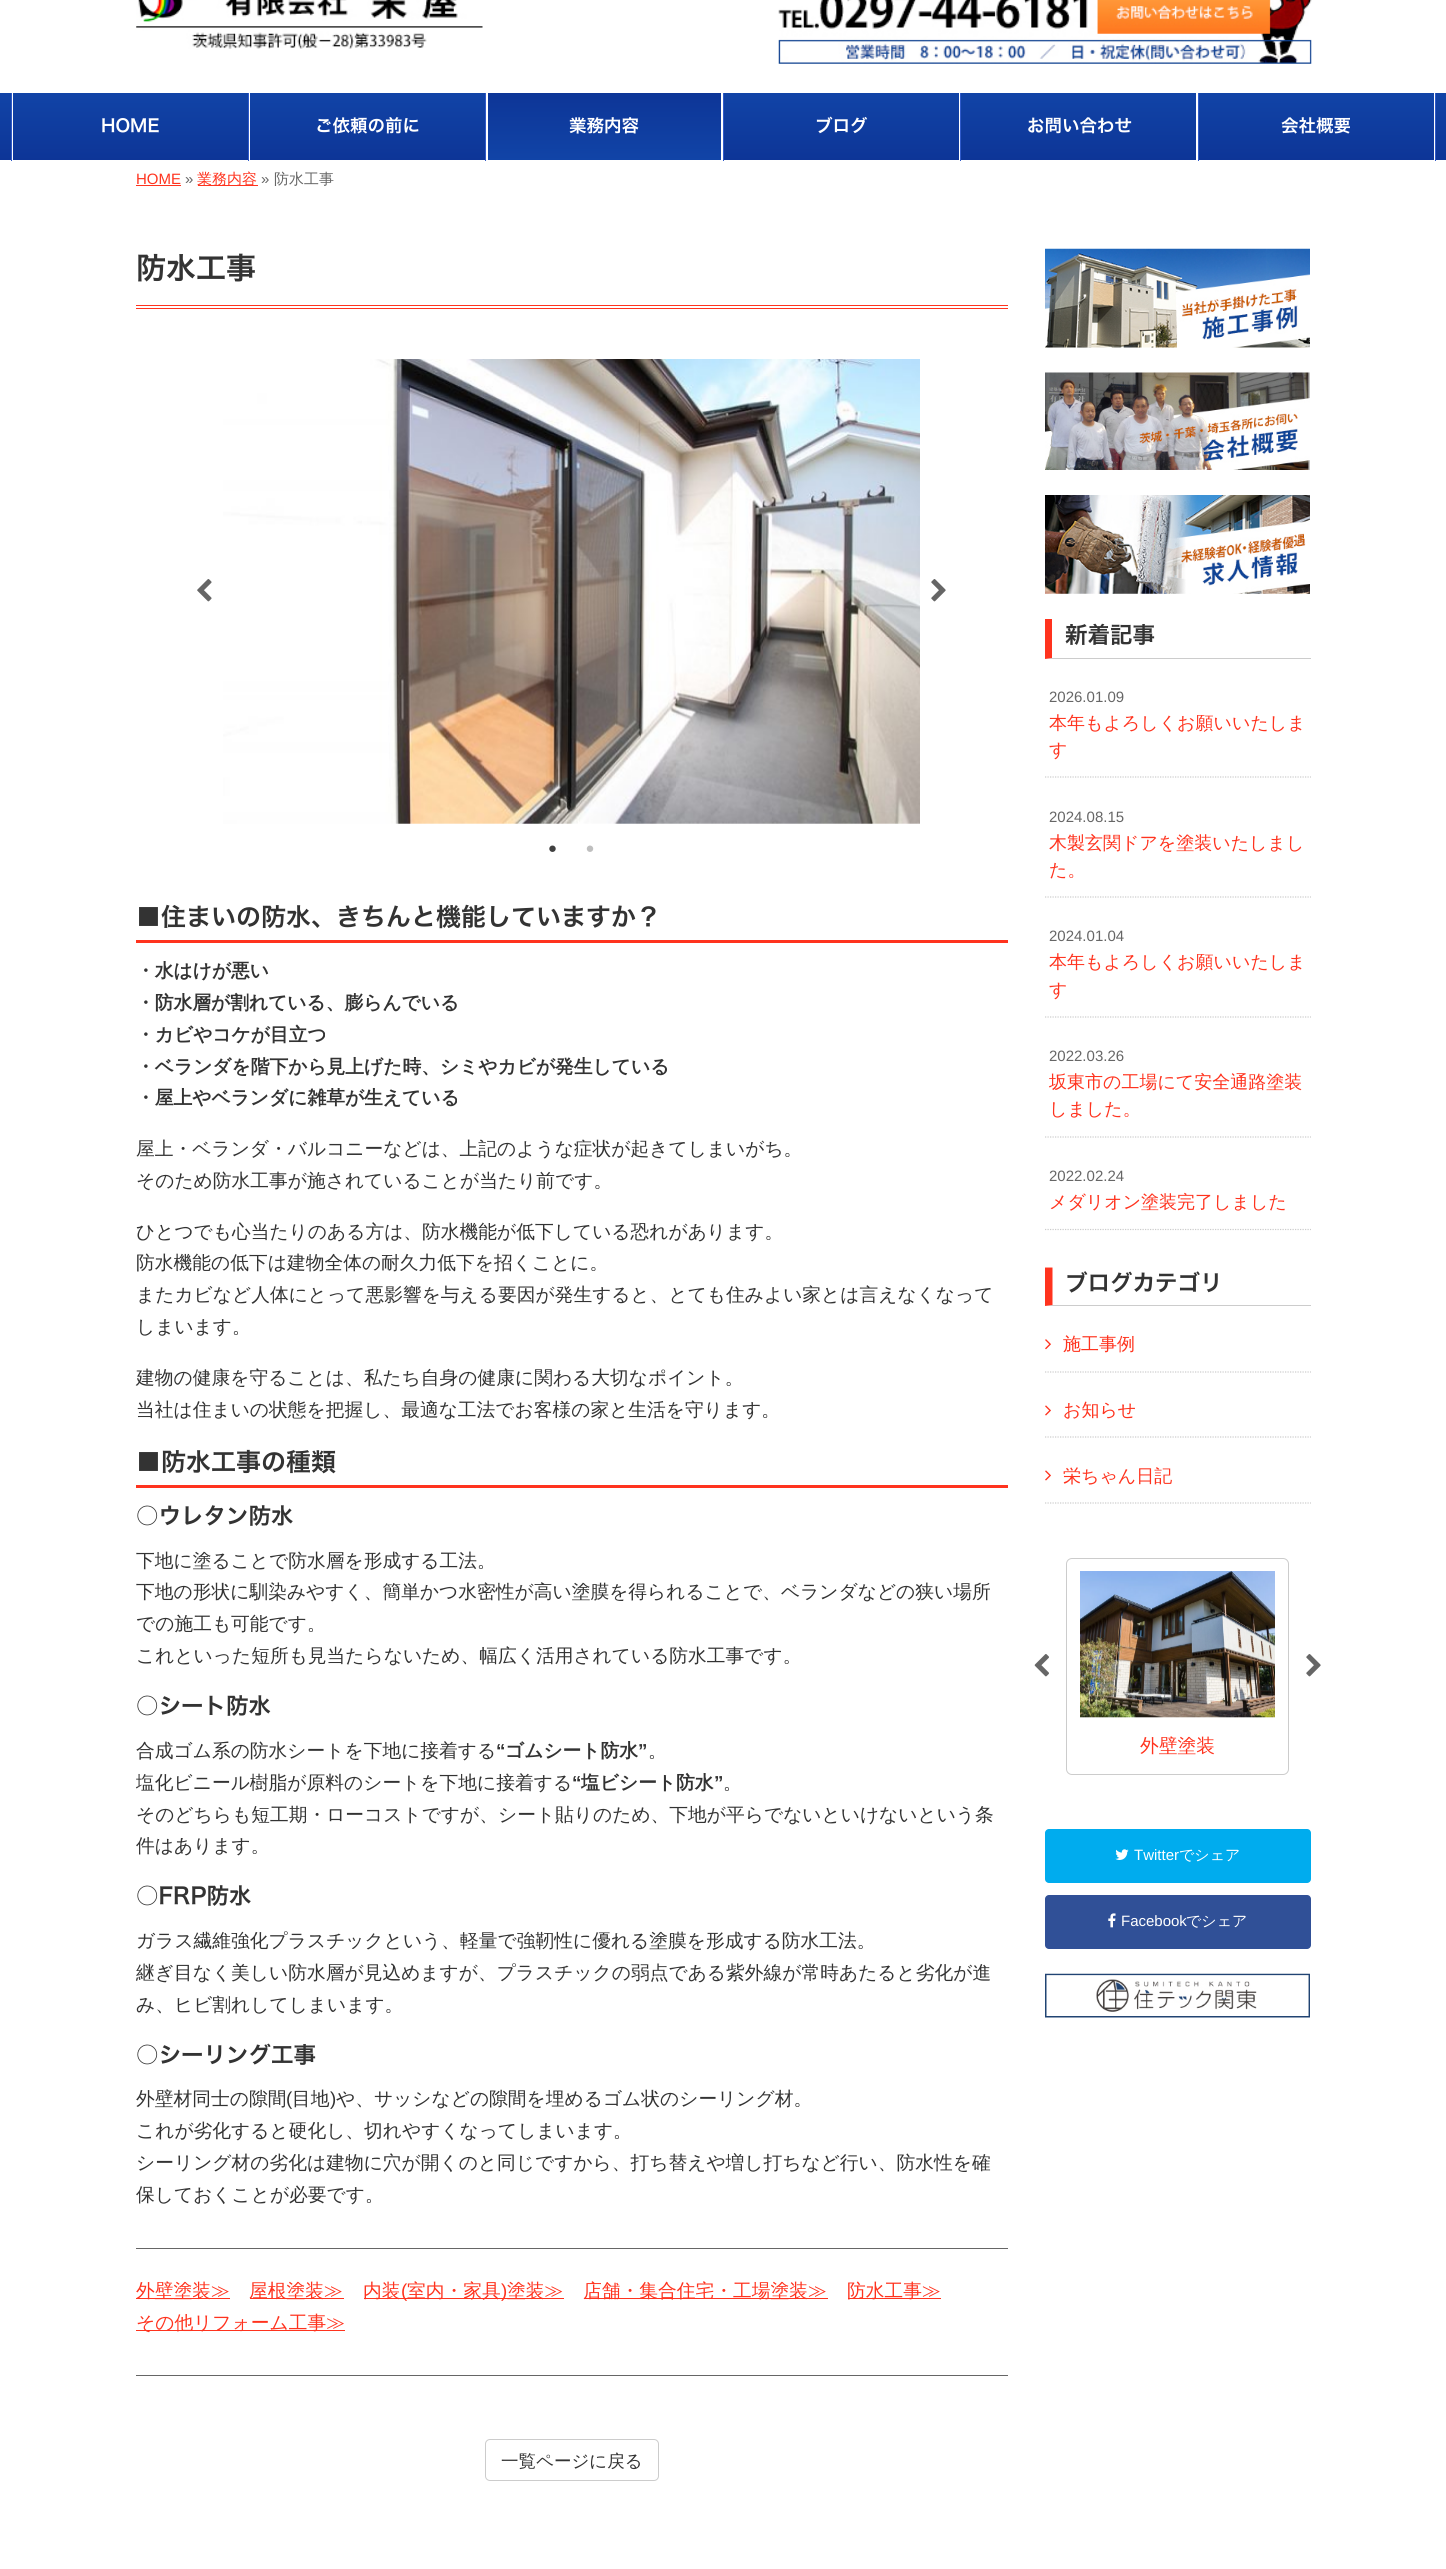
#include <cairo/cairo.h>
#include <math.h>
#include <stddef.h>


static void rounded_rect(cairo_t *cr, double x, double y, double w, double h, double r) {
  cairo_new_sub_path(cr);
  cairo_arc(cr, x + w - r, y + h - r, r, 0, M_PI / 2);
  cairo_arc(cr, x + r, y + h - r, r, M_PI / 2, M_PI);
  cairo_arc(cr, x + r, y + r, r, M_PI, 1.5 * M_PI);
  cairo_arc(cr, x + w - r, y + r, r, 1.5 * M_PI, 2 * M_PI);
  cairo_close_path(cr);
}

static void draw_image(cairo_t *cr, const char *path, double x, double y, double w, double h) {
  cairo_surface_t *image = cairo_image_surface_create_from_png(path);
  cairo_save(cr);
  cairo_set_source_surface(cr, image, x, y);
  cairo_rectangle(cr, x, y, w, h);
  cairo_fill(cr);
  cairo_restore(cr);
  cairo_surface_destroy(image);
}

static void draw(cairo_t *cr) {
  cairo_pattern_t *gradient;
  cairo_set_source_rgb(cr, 1, 1, 1);
  cairo_paint(cr);
  draw_image(cr, "images/1.png", 136, 0, 347, 49);
  draw_image(cr, "images/2.png", 778, 0, 534, 64);
  gradient = cairo_pattern_create_linear(723, 92, 723, 160);
  cairo_pattern_add_color_stop_rgba(gradient, 0, 17 / 255.0, 68 / 255.0, 167 / 255.0, 1);
  cairo_pattern_add_color_stop_rgba(gradient, 1, 13 / 255.0, 53 / 255.0, 151 / 255.0, 1);
  cairo_set_source(cr, gradient);
  cairo_pattern_destroy(gradient);
  cairo_rectangle(cr, 0, 93, 1446, 67);
  cairo_fill(cr);
  cairo_set_source_rgb(cr, 1, 1, 1);
  cairo_rectangle(cr, 12, 93, 1423, 67);
  cairo_fill(cr);
  gradient = cairo_pattern_create_linear(130, 92, 130, 160);
  cairo_pattern_add_color_stop_rgba(gradient, 0, 17 / 255.0, 68 / 255.0, 167 / 255.0, 1);
  cairo_pattern_add_color_stop_rgba(gradient, 1, 13 / 255.0, 53 / 255.0, 151 / 255.0, 1);
  cairo_set_source(cr, gradient);
  cairo_pattern_destroy(gradient);
  cairo_rectangle(cr, 13, 93, 235, 67);
  cairo_fill(cr);
  cairo_set_source_rgb(cr, 47 / 255.0, 90 / 255.0, 202 / 255.0);
  cairo_rectangle(cr, 11, 93, 1, 68);
  cairo_fill(cr);
  cairo_rectangle(cr, 248, 93, 1, 68);
  cairo_fill(cr);
  gradient = cairo_pattern_create_linear(368, 92, 368, 160);
  cairo_pattern_add_color_stop_rgba(gradient, 0, 17 / 255.0, 68 / 255.0, 167 / 255.0, 1);
  cairo_pattern_add_color_stop_rgba(gradient, 1, 13 / 255.0, 53 / 255.0, 151 / 255.0, 1);
  cairo_set_source(cr, gradient);
  cairo_pattern_destroy(gradient);
  cairo_rectangle(cr, 250, 93, 235, 67);
  cairo_fill(cr);
  cairo_set_source_rgb(cr, 47 / 255.0, 90 / 255.0, 202 / 255.0);
  cairo_rectangle(cr, 485, 93, 1, 68);
  cairo_fill(cr);
  gradient = cairo_pattern_create_linear(604, 92, 604, 160);
  cairo_pattern_add_color_stop_rgba(gradient, 0, 13 / 255.0, 53 / 255.0, 151 / 255.0, 1);
  cairo_pattern_add_color_stop_rgba(gradient, 1, 17 / 255.0, 68 / 255.0, 167 / 255.0, 1);
  cairo_set_source(cr, gradient);
  cairo_pattern_destroy(gradient);
  cairo_rectangle(cr, 488, 93, 233, 67);
  cairo_fill(cr);
  cairo_set_source_rgb(cr, 47 / 255.0, 90 / 255.0, 202 / 255.0);
  cairo_rectangle(cr, 723, 93, 1, 68);
  cairo_fill(cr);
  gradient = cairo_pattern_create_linear(841, 92, 841, 160);
  cairo_pattern_add_color_stop_rgba(gradient, 0, 17 / 255.0, 68 / 255.0, 167 / 255.0, 1);
  cairo_pattern_add_color_stop_rgba(gradient, 1, 13 / 255.0, 53 / 255.0, 151 / 255.0, 1);
  cairo_set_source(cr, gradient);
  cairo_pattern_destroy(gradient);
  cairo_rectangle(cr, 724, 93, 235, 67);
  cairo_fill(cr);
  gradient = cairo_pattern_create_linear(1079, 92, 1079, 160);
  cairo_pattern_add_color_stop_rgba(gradient, 0, 17 / 255.0, 68 / 255.0, 167 / 255.0, 1);
  cairo_pattern_add_color_stop_rgba(gradient, 1, 13 / 255.0, 53 / 255.0, 151 / 255.0, 1);
  cairo_set_source(cr, gradient);
  cairo_pattern_destroy(gradient);
  cairo_rectangle(cr, 961, 93, 235, 67);
  cairo_fill(cr);
  cairo_set_source_rgb(cr, 47 / 255.0, 90 / 255.0, 202 / 255.0);
  cairo_rectangle(cr, 960, 93, 1, 68);
  cairo_fill(cr);
  gradient = cairo_pattern_create_linear(1316, 92, 1316, 160);
  cairo_pattern_add_color_stop_rgba(gradient, 0, 17 / 255.0, 68 / 255.0, 167 / 255.0, 1);
  cairo_pattern_add_color_stop_rgba(gradient, 1, 13 / 255.0, 53 / 255.0, 151 / 255.0, 1);
  cairo_set_source(cr, gradient);
  cairo_pattern_destroy(gradient);
  cairo_rectangle(cr, 1199, 93, 235, 67);
  cairo_fill(cr);
  cairo_set_source_rgb(cr, 47 / 255.0, 90 / 255.0, 202 / 255.0);
  cairo_rectangle(cr, 1435, 93, 1, 68);
  cairo_fill(cr);
  cairo_rectangle(cr, 1198, 93, 1, 68);
  cairo_fill(cr);
  cairo_set_source_rgb(cr, 1, 51 / 255.0, 30 / 255.0);
  cairo_rectangle(cr, 136, 185, 45, 1);
  cairo_fill(cr);
  cairo_rectangle(cr, 198, 185, 60, 1);
  cairo_fill(cr);
  cairo_rectangle(cr, 136, 305, 872, 1);
  cairo_fill(cr);
  cairo_rectangle(cr, 136, 308, 872, 1);
  cairo_fill(cr);
  draw_image(cr, "images/3.png", 197, 579, 15, 23);
  draw_image(cr, "images/4.png", 223, 359, 697, 465);
  draw_image(cr, "images/5.png", 931, 579, 15, 23);
  draw_image(cr, "images/6.png", 549, 845, 7, 7);
  draw_image(cr, "images/7.png", 586, 845, 8, 7);
  cairo_rectangle(cr, 136, 940, 872, 3);
  cairo_fill(cr);
  cairo_rectangle(cr, 136, 1485, 872, 3);
  cairo_fill(cr);
  cairo_set_source_rgb(cr, 102 / 255.0, 102 / 255.0, 102 / 255.0);
  cairo_rectangle(cr, 136, 2248, 872, 1);
  cairo_fill(cr);
  cairo_rectangle(cr, 136, 2375, 872, 1);
  cairo_fill(cr);
  cairo_set_source_rgb(cr, 1, 51 / 255.0, 30 / 255.0);
  cairo_rectangle(cr, 136, 2298, 94, 1);
  cairo_fill(cr);
  cairo_rectangle(cr, 250, 2298, 94, 1);
  cairo_fill(cr);
  cairo_rectangle(cr, 364, 2298, 200, 1);
  cairo_fill(cr);
  cairo_rectangle(cr, 584, 2298, 244, 1);
  cairo_fill(cr);
  cairo_rectangle(cr, 848, 2298, 93, 1);
  cairo_fill(cr);
  cairo_rectangle(cr, 136, 2330, 209, 1);
  cairo_fill(cr);
  rounded_rect(cr, 485.5, 2439.5, 173, 41, 4.5);
  cairo_set_source_rgb(cr, 204 / 255.0, 204 / 255.0, 204 / 255.0);
  cairo_set_line_width(cr, 1);
  cairo_stroke(cr);
  draw_image(cr, "images/8.png", 1045, 248, 265, 100);
  draw_image(cr, "images/9.png", 1045, 372, 265, 98);
  draw_image(cr, "images/10.png", 1045, 495, 265, 99);
  cairo_new_path(cr);
  cairo_move_to(cr, 1311, 659);
  cairo_line_to(cr, 1045, 659);
  cairo_line_to(cr, 1052, 658);
  cairo_line_to(cr, 1311, 658);
  cairo_close_path(cr);
  cairo_fill(cr);
  cairo_set_source_rgb(cr, 1, 51 / 255.0, 30 / 255.0);
  cairo_new_path(cr);
  cairo_move_to(cr, 1045, 659);
  cairo_line_to(cr, 1045, 619);
  cairo_line_to(cr, 1052, 619);
  cairo_line_to(cr, 1052, 658);
  cairo_close_path(cr);
  cairo_fill(cr);
  cairo_new_path(cr);
  cairo_move_to(cr, 1045, 777);
  cairo_line_to(cr, 1311, 777);
  cairo_set_source_rgb(cr, 204 / 255.0, 204 / 255.0, 204 / 255.0);
  cairo_set_line_width(cr, 1.2);
  cairo_set_dash(cr, (double[]){1.25, 1.25}, 2, 0);
  cairo_stroke(cr);
  cairo_new_path(cr);
  cairo_move_to(cr, 1045, 897);
  cairo_line_to(cr, 1311, 897);
  cairo_stroke(cr);
  cairo_new_path(cr);
  cairo_move_to(cr, 1045, 1017);
  cairo_line_to(cr, 1311, 1017);
  cairo_stroke(cr);
  cairo_new_path(cr);
  cairo_move_to(cr, 1045, 1137);
  cairo_line_to(cr, 1311, 1137);
  cairo_stroke(cr);
  cairo_new_path(cr);
  cairo_move_to(cr, 1045, 1229.5);
  cairo_line_to(cr, 1311, 1229.5);
  cairo_stroke(cr);
  cairo_new_path(cr);
  cairo_move_to(cr, 1311, 1306);
  cairo_line_to(cr, 1045, 1306);
  cairo_line_to(cr, 1052, 1305);
  cairo_line_to(cr, 1311, 1305);
  cairo_close_path(cr);
  cairo_fill(cr);
  cairo_set_source_rgb(cr, 1, 51 / 255.0, 30 / 255.0);
  cairo_new_path(cr);
  cairo_move_to(cr, 1045, 1306);
  cairo_line_to(cr, 1045, 1267.5);
  cairo_line_to(cr, 1052.5, 1267.5);
  cairo_line_to(cr, 1052.5, 1305);
  cairo_close_path(cr);
  cairo_fill(cr);
  cairo_new_path(cr);
  cairo_move_to(cr, 1045, 1372);
  cairo_line_to(cr, 1311, 1372);
  cairo_set_source_rgb(cr, 204 / 255.0, 204 / 255.0, 204 / 255.0);
  cairo_stroke(cr);
  draw_image(cr, "images/11.png", 1045, 1339, 6, 11);
  cairo_new_path(cr);
  cairo_move_to(cr, 1045, 1437);
  cairo_line_to(cr, 1311, 1437);
  cairo_stroke(cr);
  draw_image(cr, "images/12.png", 1045, 1405, 6, 11);
  cairo_new_path(cr);
  cairo_move_to(cr, 1045, 1503);
  cairo_line_to(cr, 1311, 1503);
  cairo_stroke(cr);
  draw_image(cr, "images/12.png", 1045, 1470, 6, 11);
  draw_image(cr, "images/13.png", 1034, 1654, 15, 23);
  draw_image(cr, "images/5.png", 1306, 1654, 15, 23);
  rounded_rect(cr, 1066.5, 1558.5, 222, 216, 5.5);
  cairo_set_line_width(cr, 1);
  cairo_set_dash(cr, NULL, 0, 0);
  cairo_stroke(cr);
  draw_image(cr, "images/14.png", 1080, 1571, 195, 147);
  cairo_set_source_rgb(cr, 0, 172 / 255.0, 238 / 255.0);
  rounded_rect(cr, 1045, 1829, 266, 54, 4);
  cairo_fill(cr);
  draw_image(cr, "images/15.png", 1115, 1849, 14, 11);
  cairo_set_source_rgb(cr, 48 / 255.0, 80 / 255.0, 151 / 255.0);
  rounded_rect(cr, 1045, 1895, 266, 54, 4);
  cairo_fill(cr);
  draw_image(cr, "images/16.png", 1108, 1913, 8, 15);
  draw_image(cr, "images/17.png", 1045, 1973, 265, 45);
  cairo_select_font_face(cr, "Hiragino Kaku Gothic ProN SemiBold", CAIRO_FONT_SLANT_NORMAL, CAIRO_FONT_WEIGHT_NORMAL);
  cairo_set_font_size(cr, 17.5);
  cairo_set_source_rgb(cr, 1, 1, 1);
  cairo_move_to(cr, 101, 132);
  cairo_show_text(cr, "HOME");
  cairo_move_to(cr, 315, 132);
  cairo_show_text(cr, "ご依頼の前に");
  cairo_move_to(cr, 569, 132);
  cairo_show_text(cr, "業務内容");
  cairo_move_to(cr, 815, 132);
  cairo_show_text(cr, "ブログ");
  cairo_move_to(cr, 1027, 132);
  cairo_show_text(cr, "お問い合わせ");
  cairo_move_to(cr, 1281, 132);
  cairo_show_text(cr, "会社概要");
  cairo_select_font_face(cr, "Liberation Sans", CAIRO_FONT_SLANT_NORMAL, CAIRO_FONT_WEIGHT_NORMAL);
  cairo_set_font_size(cr, 15);
  cairo_set_source_rgb(cr, 1, 51 / 255.0, 30 / 255.0);
  cairo_move_to(cr, 136, 184);
  cairo_show_text(cr, "HOME");
  cairo_set_source_rgb(cr, 102 / 255.0, 102 / 255.0, 102 / 255.0);
  cairo_move_to(cr, 185, 184);
  cairo_show_text(cr, "»");
  cairo_select_font_face(cr, "WenQuanYi Zen Hei Medium", CAIRO_FONT_SLANT_NORMAL, CAIRO_FONT_WEIGHT_NORMAL);
  cairo_set_source_rgb(cr, 1, 51 / 255.0, 30 / 255.0);
  cairo_move_to(cr, 197, 184);
  cairo_show_text(cr, "業務内容");
  cairo_select_font_face(cr, "Liberation Sans", CAIRO_FONT_SLANT_NORMAL, CAIRO_FONT_WEIGHT_NORMAL);
  cairo_set_source_rgb(cr, 102 / 255.0, 102 / 255.0, 102 / 255.0);
  cairo_move_to(cr, 261, 184);
  cairo_show_text(cr, "»");
  cairo_select_font_face(cr, "WenQuanYi Zen Hei Medium", CAIRO_FONT_SLANT_NORMAL, CAIRO_FONT_WEIGHT_NORMAL);
  cairo_move_to(cr, 274, 184);
  cairo_show_text(cr, "防水工事");
  cairo_select_font_face(cr, "Hiragino Kaku Gothic ProN SemiBold", CAIRO_FONT_SLANT_NORMAL, CAIRO_FONT_WEIGHT_NORMAL);
  cairo_set_font_size(cr, 30);
  cairo_set_source_rgb(cr, 51 / 255.0, 51 / 255.0, 51 / 255.0);
  cairo_move_to(cr, 136, 279);
  cairo_show_text(cr, "防水工事");
  cairo_set_font_size(cr, 25);
  cairo_move_to(cr, 136, 926);
  cairo_show_text(cr, "■住まいの防水、きちんと機能していますか？");
  cairo_select_font_face(cr, "WenQuanYi Zen Hei", CAIRO_FONT_SLANT_NORMAL, CAIRO_FONT_WEIGHT_BOLD);
  cairo_set_font_size(cr, 18.75);
  cairo_move_to(cr, 136, 977);
  cairo_show_text(cr, "・水はけが悪い");
  cairo_move_to(cr, 136, 1009);
  cairo_show_text(cr, "・防水層が割れている、膨らんでいる");
  cairo_move_to(cr, 136, 1041);
  cairo_show_text(cr, "・カビやコケが目立つ");
  cairo_move_to(cr, 136, 1073);
  cairo_show_text(cr, "・ベランダを階下から見上げた時、シミやカビが発生している");
  cairo_move_to(cr, 136, 1104);
  cairo_show_text(cr, "・屋上やベランダに雑草が生えている");
  cairo_select_font_face(cr, "WenQuanYi Zen Hei Medium", CAIRO_FONT_SLANT_NORMAL, CAIRO_FONT_WEIGHT_NORMAL);
  cairo_move_to(cr, 136, 1155);
  cairo_show_text(cr, "屋上・ベランダ・バルコニーなどは、上記のような症状が起きてしまいがち。");
  cairo_move_to(cr, 136, 1187);
  cairo_show_text(cr, "そのため防水工事が施されていることが当たり前です。");
  cairo_move_to(cr, 136, 1238);
  cairo_show_text(cr, "ひとつでも心当たりのある方は、防水機能が低下している恐れがあります。");
  cairo_move_to(cr, 136, 1269);
  cairo_show_text(cr, "防水機能の低下は建物全体の耐久力低下を招くことに。");
  cairo_move_to(cr, 136, 1301);
  cairo_show_text(cr, "またカビなど人体にとって悪影響を与える要因が発生すると、とても住みよい家とは言えなくなって");
  cairo_move_to(cr, 136, 1333);
  cairo_show_text(cr, "しまいます。");
  cairo_move_to(cr, 136, 1384);
  cairo_show_text(cr, "建物の健康を守ることは、私たち自身の健康に関わる大切なポイント。");
  cairo_move_to(cr, 136, 1416);
  cairo_show_text(cr, "当社は住まいの状態を把握し、最適な工法でお客様の家と生活を守ります。");
  cairo_select_font_face(cr, "Hiragino Kaku Gothic ProN SemiBold", CAIRO_FONT_SLANT_NORMAL, CAIRO_FONT_WEIGHT_NORMAL);
  cairo_set_font_size(cr, 25);
  cairo_move_to(cr, 136, 1471);
  cairo_show_text(cr, "■防水工事の種類");
  cairo_set_font_size(cr, 22.5);
  cairo_move_to(cr, 136, 1524);
  cairo_show_text(cr, "○ウレタン防水");
  cairo_select_font_face(cr, "WenQuanYi Zen Hei Medium", CAIRO_FONT_SLANT_NORMAL, CAIRO_FONT_WEIGHT_NORMAL);
  cairo_set_font_size(cr, 18.75);
  cairo_move_to(cr, 136, 1567);
  cairo_show_text(cr, "下地に塗ることで防水層を形成する工法。");
  cairo_move_to(cr, 136, 1598);
  cairo_show_text(cr, "下地の形状に馴染みやすく、簡単かつ水密性が高い塗膜を得られることで、ベランダなどの狭い場所");
  cairo_move_to(cr, 136, 1630);
  cairo_show_text(cr, "での施工も可能です。");
  cairo_move_to(cr, 136, 1662);
  cairo_show_text(cr, "これといった短所も見当たらないため、幅広く活用されている防水工事です。");
  cairo_select_font_face(cr, "Hiragino Kaku Gothic ProN SemiBold", CAIRO_FONT_SLANT_NORMAL, CAIRO_FONT_WEIGHT_NORMAL);
  cairo_set_font_size(cr, 22.5);
  cairo_move_to(cr, 136, 1714);
  cairo_show_text(cr, "○シート防水");
  cairo_select_font_face(cr, "WenQuanYi Zen Hei Medium", CAIRO_FONT_SLANT_NORMAL, CAIRO_FONT_WEIGHT_NORMAL);
  cairo_set_font_size(cr, 18.75);
  cairo_move_to(cr, 136, 1757);
  cairo_show_text(cr, "合成ゴム系の防水シートを下地に接着する");
  cairo_select_font_face(cr, "Liberation Sans", CAIRO_FONT_SLANT_NORMAL, CAIRO_FONT_WEIGHT_BOLD);
  cairo_move_to(cr, 496, 1757);
  cairo_show_text(cr, "“");
  cairo_select_font_face(cr, "WenQuanYi Zen Hei", CAIRO_FONT_SLANT_NORMAL, CAIRO_FONT_WEIGHT_BOLD);
  cairo_move_to(cr, 505, 1757);
  cairo_show_text(cr, "ゴムシート防水");
  cairo_select_font_face(cr, "Liberation Sans", CAIRO_FONT_SLANT_NORMAL, CAIRO_FONT_WEIGHT_BOLD);
  cairo_move_to(cr, 638, 1757);
  cairo_show_text(cr, "”");
  cairo_select_font_face(cr, "WenQuanYi Zen Hei Medium", CAIRO_FONT_SLANT_NORMAL, CAIRO_FONT_WEIGHT_NORMAL);
  cairo_move_to(cr, 648, 1757);
  cairo_show_text(cr, "。");
  cairo_move_to(cr, 136, 1789);
  cairo_show_text(cr, "塩化ビニール樹脂が原料のシートを下地に接着する");
  cairo_select_font_face(cr, "Liberation Sans", CAIRO_FONT_SLANT_NORMAL, CAIRO_FONT_WEIGHT_BOLD);
  cairo_move_to(cr, 572, 1789);
  cairo_show_text(cr, "“");
  cairo_select_font_face(cr, "WenQuanYi Zen Hei", CAIRO_FONT_SLANT_NORMAL, CAIRO_FONT_WEIGHT_BOLD);
  cairo_move_to(cr, 581, 1789);
  cairo_show_text(cr, "塩ビシート防水");
  cairo_select_font_face(cr, "Liberation Sans", CAIRO_FONT_SLANT_NORMAL, CAIRO_FONT_WEIGHT_BOLD);
  cairo_move_to(cr, 714, 1789);
  cairo_show_text(cr, "”");
  cairo_select_font_face(cr, "WenQuanYi Zen Hei Medium", CAIRO_FONT_SLANT_NORMAL, CAIRO_FONT_WEIGHT_NORMAL);
  cairo_move_to(cr, 723, 1789);
  cairo_show_text(cr, "。");
  cairo_move_to(cr, 136, 1821);
  cairo_show_text(cr, "そのどちらも短工期・ローコストですが、シート貼りのため、下地が平らでないといけないという条");
  cairo_move_to(cr, 136, 1852);
  cairo_show_text(cr, "件はあります。");
  cairo_select_font_face(cr, "Hiragino Kaku Gothic ProN SemiBold", CAIRO_FONT_SLANT_NORMAL, CAIRO_FONT_WEIGHT_NORMAL);
  cairo_set_font_size(cr, 22.5);
  cairo_move_to(cr, 136, 1904);
  cairo_show_text(cr, "○FRP防水");
  cairo_select_font_face(cr, "WenQuanYi Zen Hei Medium", CAIRO_FONT_SLANT_NORMAL, CAIRO_FONT_WEIGHT_NORMAL);
  cairo_set_font_size(cr, 18.75);
  cairo_move_to(cr, 136, 1947);
  cairo_show_text(cr, "ガラス繊維強化プラスチックという、軽量で強靭性に優れる塗膜を形成する防水工法。");
  cairo_move_to(cr, 136, 1979);
  cairo_show_text(cr, "継ぎ目なく美しい防水層が見込めますが、プラスチックの弱点である紫外線が常時あたると劣化が進");
  cairo_move_to(cr, 136, 2011);
  cairo_show_text(cr, "み、ヒビ割れしてしまいます。");
  cairo_select_font_face(cr, "Hiragino Kaku Gothic ProN SemiBold", CAIRO_FONT_SLANT_NORMAL, CAIRO_FONT_WEIGHT_NORMAL);
  cairo_set_font_size(cr, 22.5);
  cairo_move_to(cr, 136, 2063);
  cairo_show_text(cr, "○シーリング工事");
  cairo_select_font_face(cr, "WenQuanYi Zen Hei Medium", CAIRO_FONT_SLANT_NORMAL, CAIRO_FONT_WEIGHT_NORMAL);
  cairo_set_font_size(cr, 18.75);
  cairo_move_to(cr, 136, 2105);
  cairo_show_text(cr, "外壁材同士の隙間");
  cairo_select_font_face(cr, "Liberation Sans", CAIRO_FONT_SLANT_NORMAL, CAIRO_FONT_WEIGHT_NORMAL);
  cairo_move_to(cr, 286, 2105);
  cairo_show_text(cr, "(");
  cairo_select_font_face(cr, "WenQuanYi Zen Hei Medium", CAIRO_FONT_SLANT_NORMAL, CAIRO_FONT_WEIGHT_NORMAL);
  cairo_move_to(cr, 292, 2105);
  cairo_show_text(cr, "目地");
  cairo_select_font_face(cr, "Liberation Sans", CAIRO_FONT_SLANT_NORMAL, CAIRO_FONT_WEIGHT_NORMAL);
  cairo_move_to(cr, 330, 2105);
  cairo_show_text(cr, ")");
  cairo_select_font_face(cr, "WenQuanYi Zen Hei Medium", CAIRO_FONT_SLANT_NORMAL, CAIRO_FONT_WEIGHT_NORMAL);
  cairo_move_to(cr, 336, 2105);
  cairo_show_text(cr, "や、サッシなどの隙間を埋めるゴム状のシーリング材。");
  cairo_move_to(cr, 136, 2137);
  cairo_show_text(cr, "これが劣化すると硬化し、切れやすくなってしまいます。");
  cairo_move_to(cr, 136, 2169);
  cairo_show_text(cr, "シーリング材の劣化は建物に穴が開くのと同じですから、打ち替えや増し打ちなど行い、防水性を確");
  cairo_move_to(cr, 136, 2201);
  cairo_show_text(cr, "保しておくことが必要です。");
  cairo_set_source_rgb(cr, 1, 51 / 255.0, 30 / 255.0);
  cairo_move_to(cr, 136, 2297);
  cairo_show_text(cr, "外壁塗装≫");
  cairo_move_to(cr, 249, 2297);
  cairo_show_text(cr, "屋根塗装≫");
  cairo_move_to(cr, 363, 2297);
  cairo_show_text(cr, "内装");
  cairo_select_font_face(cr, "Liberation Sans", CAIRO_FONT_SLANT_NORMAL, CAIRO_FONT_WEIGHT_NORMAL);
  cairo_move_to(cr, 401, 2297);
  cairo_show_text(cr, "(");
  cairo_select_font_face(cr, "WenQuanYi Zen Hei Medium", CAIRO_FONT_SLANT_NORMAL, CAIRO_FONT_WEIGHT_NORMAL);
  cairo_move_to(cr, 407, 2297);
  cairo_show_text(cr, "室内・家具");
  cairo_select_font_face(cr, "Liberation Sans", CAIRO_FONT_SLANT_NORMAL, CAIRO_FONT_WEIGHT_NORMAL);
  cairo_move_to(cr, 501, 2297);
  cairo_show_text(cr, ")");
  cairo_select_font_face(cr, "WenQuanYi Zen Hei Medium", CAIRO_FONT_SLANT_NORMAL, CAIRO_FONT_WEIGHT_NORMAL);
  cairo_move_to(cr, 507, 2297);
  cairo_show_text(cr, "塗装≫");
  cairo_move_to(cr, 583, 2297);
  cairo_show_text(cr, "店舗・集合住宅・工場塗装≫");
  cairo_move_to(cr, 847, 2297);
  cairo_show_text(cr, "防水工事≫");
  cairo_move_to(cr, 136, 2329);
  cairo_show_text(cr, "その他リフォーム工事≫");
  cairo_set_font_size(cr, 17.5);
  cairo_set_source_rgb(cr, 51 / 255.0, 51 / 255.0, 51 / 255.0);
  cairo_move_to(cr, 501, 2467);
  cairo_show_text(cr, "一覧ページに戻る");
  cairo_select_font_face(cr, "Hiragino Kaku Gothic ProN SemiBold", CAIRO_FONT_SLANT_NORMAL, CAIRO_FONT_WEIGHT_NORMAL);
  cairo_set_font_size(cr, 22.5);
  cairo_move_to(cr, 1065, 643);
  cairo_show_text(cr, "新着記事");
  cairo_select_font_face(cr, "Liberation Sans", CAIRO_FONT_SLANT_NORMAL, CAIRO_FONT_WEIGHT_NORMAL);
  cairo_set_font_size(cr, 15);
  cairo_set_source_rgb(cr, 102 / 255.0, 102 / 255.0, 102 / 255.0);
  cairo_move_to(cr, 1049, 702);
  cairo_show_text(cr, "2026.01.09");
  cairo_select_font_face(cr, "WenQuanYi Zen Hei Medium", CAIRO_FONT_SLANT_NORMAL, CAIRO_FONT_WEIGHT_NORMAL);
  cairo_set_font_size(cr, 18);
  cairo_set_source_rgb(cr, 1, 51 / 255.0, 30 / 255.0);
  cairo_move_to(cr, 1049, 729);
  cairo_show_text(cr, "本年もよろしくお願いいたしま");
  cairo_move_to(cr, 1049, 756);
  cairo_show_text(cr, "す");
  cairo_select_font_face(cr, "Liberation Sans", CAIRO_FONT_SLANT_NORMAL, CAIRO_FONT_WEIGHT_NORMAL);
  cairo_set_font_size(cr, 15);
  cairo_set_source_rgb(cr, 102 / 255.0, 102 / 255.0, 102 / 255.0);
  cairo_move_to(cr, 1049, 822);
  cairo_show_text(cr, "2024.08.15");
  cairo_select_font_face(cr, "WenQuanYi Zen Hei Medium", CAIRO_FONT_SLANT_NORMAL, CAIRO_FONT_WEIGHT_NORMAL);
  cairo_set_font_size(cr, 18);
  cairo_set_source_rgb(cr, 1, 51 / 255.0, 30 / 255.0);
  cairo_move_to(cr, 1049, 849);
  cairo_show_text(cr, "木製玄関ドアを塗装いたしまし");
  cairo_move_to(cr, 1049, 876);
  cairo_show_text(cr, "た。");
  cairo_select_font_face(cr, "Liberation Sans", CAIRO_FONT_SLANT_NORMAL, CAIRO_FONT_WEIGHT_NORMAL);
  cairo_set_font_size(cr, 15);
  cairo_set_source_rgb(cr, 102 / 255.0, 102 / 255.0, 102 / 255.0);
  cairo_move_to(cr, 1049, 941);
  cairo_show_text(cr, "2024.01.04");
  cairo_select_font_face(cr, "WenQuanYi Zen Hei Medium", CAIRO_FONT_SLANT_NORMAL, CAIRO_FONT_WEIGHT_NORMAL);
  cairo_set_font_size(cr, 18);
  cairo_set_source_rgb(cr, 1, 51 / 255.0, 30 / 255.0);
  cairo_move_to(cr, 1049, 968);
  cairo_show_text(cr, "本年もよろしくお願いいたしま");
  cairo_move_to(cr, 1049, 996);
  cairo_show_text(cr, "す");
  cairo_select_font_face(cr, "Liberation Sans", CAIRO_FONT_SLANT_NORMAL, CAIRO_FONT_WEIGHT_NORMAL);
  cairo_set_font_size(cr, 15);
  cairo_set_source_rgb(cr, 102 / 255.0, 102 / 255.0, 102 / 255.0);
  cairo_move_to(cr, 1049, 1061);
  cairo_show_text(cr, "2022.03.26");
  cairo_select_font_face(cr, "WenQuanYi Zen Hei Medium", CAIRO_FONT_SLANT_NORMAL, CAIRO_FONT_WEIGHT_NORMAL);
  cairo_set_font_size(cr, 18);
  cairo_set_source_rgb(cr, 1, 51 / 255.0, 30 / 255.0);
  cairo_move_to(cr, 1049, 1088);
  cairo_show_text(cr, "坂東市の工場にて安全通路塗装");
  cairo_move_to(cr, 1049, 1115);
  cairo_show_text(cr, "しました。");
  cairo_select_font_face(cr, "Liberation Sans", CAIRO_FONT_SLANT_NORMAL, CAIRO_FONT_WEIGHT_NORMAL);
  cairo_set_font_size(cr, 15);
  cairo_set_source_rgb(cr, 102 / 255.0, 102 / 255.0, 102 / 255.0);
  cairo_move_to(cr, 1049, 1181);
  cairo_show_text(cr, "2022.02.24");
  cairo_select_font_face(cr, "WenQuanYi Zen Hei Medium", CAIRO_FONT_SLANT_NORMAL, CAIRO_FONT_WEIGHT_NORMAL);
  cairo_set_font_size(cr, 18);
  cairo_set_source_rgb(cr, 1, 51 / 255.0, 30 / 255.0);
  cairo_move_to(cr, 1049, 1208);
  cairo_show_text(cr, "メダリオン塗装完了しました");
  cairo_select_font_face(cr, "Hiragino Kaku Gothic ProN SemiBold", CAIRO_FONT_SLANT_NORMAL, CAIRO_FONT_WEIGHT_NORMAL);
  cairo_set_font_size(cr, 22.5);
  cairo_set_source_rgb(cr, 51 / 255.0, 51 / 255.0, 51 / 255.0);
  cairo_move_to(cr, 1065, 1291);
  cairo_show_text(cr, "ブログカテゴリ");
  cairo_select_font_face(cr, "WenQuanYi Zen Hei Medium", CAIRO_FONT_SLANT_NORMAL, CAIRO_FONT_WEIGHT_NORMAL);
  cairo_set_font_size(cr, 18);
  cairo_set_source_rgb(cr, 1, 51 / 255.0, 30 / 255.0);
  cairo_move_to(cr, 1063, 1350);
  cairo_show_text(cr, "施工事例");
  cairo_move_to(cr, 1063, 1416);
  cairo_show_text(cr, "お知らせ");
  cairo_move_to(cr, 1063, 1482);
  cairo_show_text(cr, "栄ちゃん日記");
  cairo_set_font_size(cr, 18.75);
  cairo_move_to(cr, 1140, 1752);
  cairo_show_text(cr, "外壁塗装");
  cairo_select_font_face(cr, "Liberation Sans", CAIRO_FONT_SLANT_NORMAL, CAIRO_FONT_WEIGHT_NORMAL);
  cairo_set_font_size(cr, 15);
  cairo_set_source_rgb(cr, 1, 1, 1);
  cairo_move_to(cr, 1134, 1860);
  cairo_show_text(cr, "Twitter");
  cairo_select_font_face(cr, "WenQuanYi Zen Hei Medium", CAIRO_FONT_SLANT_NORMAL, CAIRO_FONT_WEIGHT_NORMAL);
  cairo_move_to(cr, 1179, 1860);
  cairo_show_text(cr, "でシェア");
  cairo_select_font_face(cr, "Liberation Sans", CAIRO_FONT_SLANT_NORMAL, CAIRO_FONT_WEIGHT_NORMAL);
  cairo_move_to(cr, 1121, 1926);
  cairo_show_text(cr, "Facebook");
  cairo_select_font_face(cr, "WenQuanYi Zen Hei Medium", CAIRO_FONT_SLANT_NORMAL, CAIRO_FONT_WEIGHT_NORMAL);
  cairo_move_to(cr, 1186, 1926);
  cairo_show_text(cr, "でシェア");
}

int main(void) {
  cairo_surface_t *surface = cairo_image_surface_create(CAIRO_FORMAT_RGB24, 1446, 2569);
  cairo_t *cr = cairo_create(surface);
  cairo_font_options_t *options = cairo_font_options_create();
  cairo_font_options_set_hint_metrics(options, CAIRO_HINT_METRICS_OFF);
  cairo_font_options_set_hint_style(options, CAIRO_HINT_STYLE_NONE);
  cairo_set_font_options(cr, options);
  cairo_set_miter_limit(cr, 4);
  draw(cr);
  cairo_surface_write_to_png(surface, "out.png");
  cairo_font_options_destroy(options);
  cairo_destroy(cr);
  cairo_surface_destroy(surface);
  return 0;
}
